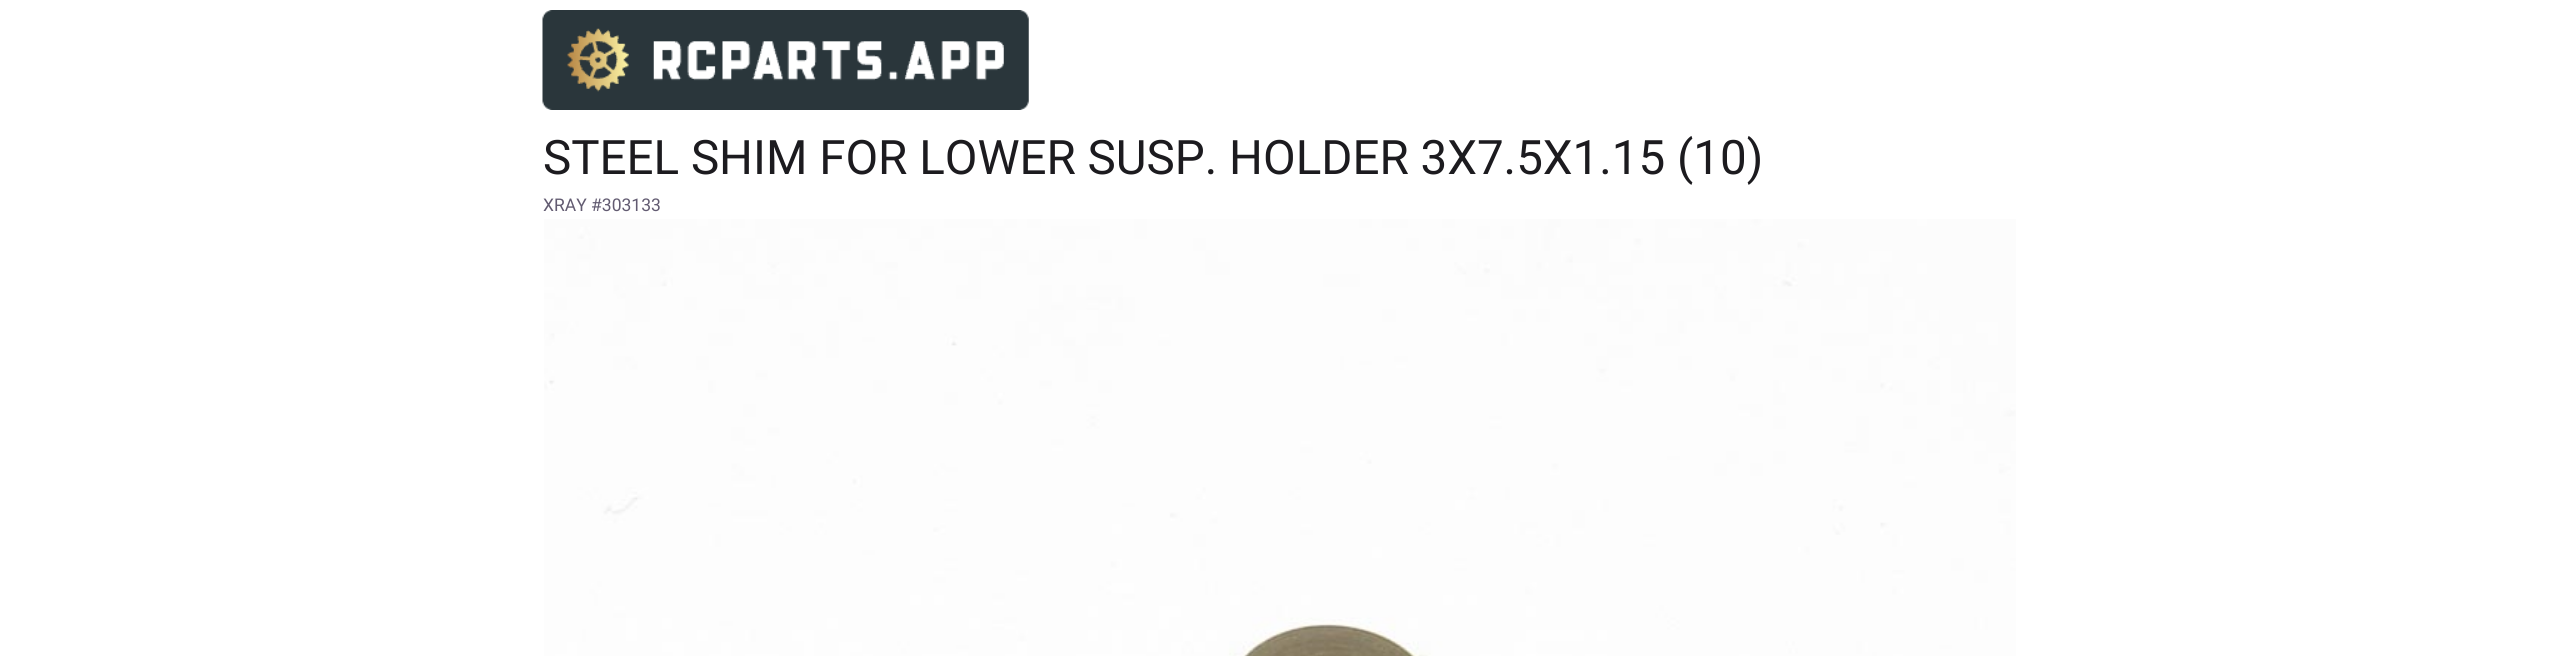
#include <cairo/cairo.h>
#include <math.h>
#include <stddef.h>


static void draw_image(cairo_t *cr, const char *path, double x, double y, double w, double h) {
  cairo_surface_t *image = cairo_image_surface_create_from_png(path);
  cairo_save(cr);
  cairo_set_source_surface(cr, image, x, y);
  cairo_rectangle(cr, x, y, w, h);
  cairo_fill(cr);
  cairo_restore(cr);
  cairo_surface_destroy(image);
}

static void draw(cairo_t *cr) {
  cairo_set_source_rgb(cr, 1, 1, 1);
  cairo_paint(cr);
  draw_image(cr, "images/1.png", 542, 10, 487, 100);
  draw_image(cr, "images/2.png", 544, 219, 1472, 437);
  cairo_select_font_face(cr, "Roboto", CAIRO_FONT_SLANT_NORMAL, CAIRO_FONT_WEIGHT_NORMAL);
  cairo_set_font_size(cr, 47.5);
  cairo_set_source_rgb(cr, 28 / 255.0, 27 / 255.0, 31 / 255.0);
  cairo_move_to(cr, 543, 174);
  cairo_show_text(cr, "STEEL SHIM FOR LOWER SUSP. HOLDER 3X7.5X1.15 (10)");
  cairo_set_font_size(cr, 17.5);
  cairo_set_source_rgb(cr, 98 / 255.0, 91 / 255.0, 113 / 255.0);
  cairo_move_to(cr, 543, 211);
  cairo_show_text(cr, "XRAY #303133");
}

int main(void) {
  cairo_surface_t *surface = cairo_image_surface_create(CAIRO_FORMAT_RGB24, 2565, 656);
  cairo_t *cr = cairo_create(surface);
  cairo_font_options_t *options = cairo_font_options_create();
  cairo_font_options_set_hint_metrics(options, CAIRO_HINT_METRICS_OFF);
  cairo_font_options_set_hint_style(options, CAIRO_HINT_STYLE_NONE);
  cairo_set_font_options(cr, options);
  cairo_set_miter_limit(cr, 4);
  draw(cr);
  cairo_surface_write_to_png(surface, "out.png");
  cairo_font_options_destroy(options);
  cairo_destroy(cr);
  cairo_surface_destroy(surface);
  return 0;
}
